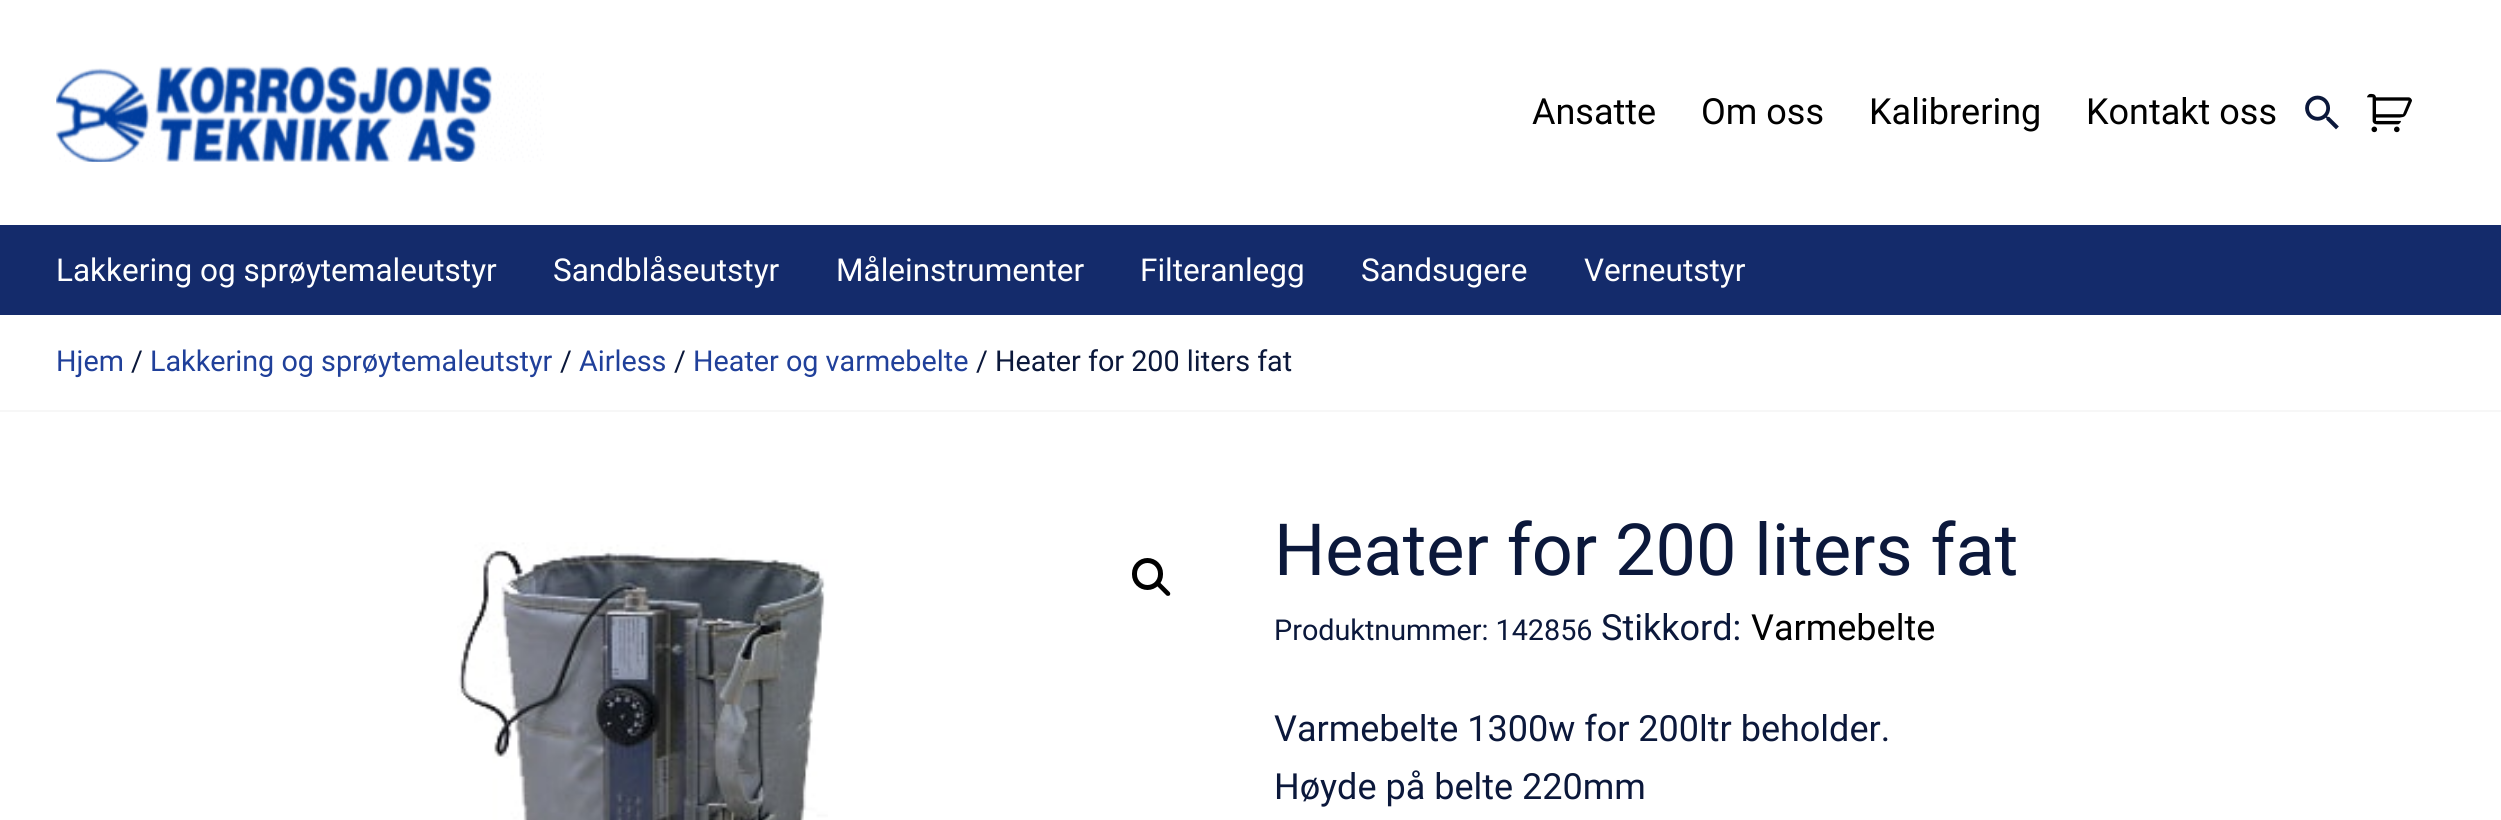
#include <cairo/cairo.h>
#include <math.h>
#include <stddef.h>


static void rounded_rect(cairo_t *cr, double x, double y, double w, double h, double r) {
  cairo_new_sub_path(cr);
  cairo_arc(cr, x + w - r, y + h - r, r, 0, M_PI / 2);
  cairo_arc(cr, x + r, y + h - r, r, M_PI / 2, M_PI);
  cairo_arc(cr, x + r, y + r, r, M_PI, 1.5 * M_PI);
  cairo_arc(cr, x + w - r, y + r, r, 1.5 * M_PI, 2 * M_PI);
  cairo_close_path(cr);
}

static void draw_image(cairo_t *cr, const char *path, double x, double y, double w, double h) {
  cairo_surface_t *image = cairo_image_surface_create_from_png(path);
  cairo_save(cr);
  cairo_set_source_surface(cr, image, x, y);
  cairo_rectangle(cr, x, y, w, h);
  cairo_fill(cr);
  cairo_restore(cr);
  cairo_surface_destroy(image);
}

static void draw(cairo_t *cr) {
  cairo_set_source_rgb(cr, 1, 1, 1);
  cairo_paint(cr);
  draw_image(cr, "images/1.png", 56, 66, 488, 96);
  draw_image(cr, "images/2.png", 2305, 95, 34, 35);
  draw_image(cr, "images/3.png", 2367, 93, 45, 40);
  cairo_set_source_rgb(cr, 20 / 255.0, 43 / 255.0, 107 / 255.0);
  cairo_rectangle(cr, 0, 225, 2501, 90);
  cairo_fill(cr);
  cairo_set_source_rgb(cr, 247 / 255.0, 247 / 255.0, 247 / 255.0);
  cairo_rectangle(cr, 0, 410, 2501, 2);
  cairo_fill(cr);
  draw_image(cr, "images/4.png", 457, 542, 371, 278);
  rounded_rect(cr, 1134.5, 560.5, 26, 27, 13);
  cairo_set_source_rgb(cr, 0, 0, 0);
  cairo_set_line_width(cr, 5);
  cairo_stroke(cr);
  cairo_new_path(cr);
  cairo_move_to(cr, 1157, 582.5);
  cairo_curve_to(cr, 1158, 581.5, 1159, 581.5, 1160, 582.5);
  cairo_line_to(cr, 1169.5, 592);
  cairo_curve_to(cr, 1170.5, 593, 1170.5, 594.5, 1169.5, 595.5);
  cairo_curve_to(cr, 1168.5, 596, 1167.5, 596, 1166.5, 595.5);
  cairo_line_to(cr, 1157, 586);
  cairo_curve_to(cr, 1156, 585, 1156, 583.5, 1157, 582.5);
  cairo_close_path(cr);
  cairo_fill(cr);
  cairo_select_font_face(cr, "Roboto", CAIRO_FONT_SLANT_NORMAL, CAIRO_FONT_WEIGHT_NORMAL);
  cairo_set_font_size(cr, 36);
  cairo_move_to(cr, 1532, 124);
  cairo_show_text(cr, "Ansatte");
  cairo_move_to(cr, 1701, 124);
  cairo_show_text(cr, "Om oss");
  cairo_move_to(cr, 1869, 124);
  cairo_show_text(cr, "Kalibrering");
  cairo_move_to(cr, 2086, 124);
  cairo_show_text(cr, "Kontakt oss");
  cairo_set_font_size(cr, 31.5);
  cairo_set_source_rgb(cr, 1, 1, 1);
  cairo_move_to(cr, 56, 281);
  cairo_show_text(cr, "Lakkering og sprøytemaleutstyr");
  cairo_move_to(cr, 553, 281);
  cairo_show_text(cr, "Sandblåseutstyr");
  cairo_move_to(cr, 836, 281);
  cairo_show_text(cr, "Måleinstrumenter");
  cairo_move_to(cr, 1140, 281);
  cairo_show_text(cr, "Filteranlegg");
  cairo_move_to(cr, 1361, 281);
  cairo_show_text(cr, "Sandsugere");
  cairo_move_to(cr, 1584, 281);
  cairo_show_text(cr, "Verneutstyr");
  cairo_set_font_size(cr, 28.75);
  cairo_set_source_rgb(cr, 32 / 255.0, 64 / 255.0, 154 / 255.0);
  cairo_move_to(cr, 56, 371);
  cairo_show_text(cr, "Hjem");
  cairo_set_source_rgb(cr, 11 / 255.0, 24 / 255.0, 59 / 255.0);
  cairo_move_to(cr, 131, 371);
  cairo_show_text(cr, "/");
  cairo_set_source_rgb(cr, 32 / 255.0, 64 / 255.0, 154 / 255.0);
  cairo_move_to(cr, 150, 371);
  cairo_show_text(cr, "Lakkering og sprøytemaleutstyr");
  cairo_set_source_rgb(cr, 11 / 255.0, 24 / 255.0, 59 / 255.0);
  cairo_move_to(cr, 560, 371);
  cairo_show_text(cr, "/");
  cairo_set_source_rgb(cr, 32 / 255.0, 64 / 255.0, 154 / 255.0);
  cairo_move_to(cr, 579, 371);
  cairo_show_text(cr, "Airless");
  cairo_set_source_rgb(cr, 11 / 255.0, 24 / 255.0, 59 / 255.0);
  cairo_move_to(cr, 674, 371);
  cairo_show_text(cr, "/");
  cairo_set_source_rgb(cr, 32 / 255.0, 64 / 255.0, 154 / 255.0);
  cairo_move_to(cr, 693, 371);
  cairo_show_text(cr, "Heater og varmebelte");
  cairo_set_source_rgb(cr, 11 / 255.0, 24 / 255.0, 59 / 255.0);
  cairo_move_to(cr, 976, 371);
  cairo_show_text(cr, "/ Heater for 200 liters fat");
  cairo_set_font_size(cr, 72);
  cairo_move_to(cr, 1274, 575);
  cairo_show_text(cr, "Heater for 200 liters fat");
  cairo_set_font_size(cr, 28.75);
  cairo_move_to(cr, 1274, 640);
  cairo_show_text(cr, "Produktnummer: 142856");
  cairo_set_font_size(cr, 36);
  cairo_move_to(cr, 1601, 640);
  cairo_show_text(cr, "Stikkord:");
  cairo_set_source_rgb(cr, 0, 0, 0);
  cairo_move_to(cr, 1751, 640);
  cairo_show_text(cr, "Varmebelte");
  cairo_set_source_rgb(cr, 11 / 255.0, 24 / 255.0, 59 / 255.0);
  cairo_move_to(cr, 1274, 741);
  cairo_show_text(cr, "Varmebelte 1300w for 200ltr beholder.");
  cairo_move_to(cr, 1274, 799);
  cairo_show_text(cr, "Høyde på belte 220mm");
}

int main(void) {
  cairo_surface_t *surface = cairo_image_surface_create(CAIRO_FORMAT_RGB24, 2501, 820);
  cairo_t *cr = cairo_create(surface);
  cairo_font_options_t *options = cairo_font_options_create();
  cairo_font_options_set_hint_metrics(options, CAIRO_HINT_METRICS_OFF);
  cairo_font_options_set_hint_style(options, CAIRO_HINT_STYLE_NONE);
  cairo_set_font_options(cr, options);
  cairo_set_miter_limit(cr, 4);
  draw(cr);
  cairo_surface_write_to_png(surface, "out.png");
  cairo_font_options_destroy(options);
  cairo_destroy(cr);
  cairo_surface_destroy(surface);
  return 0;
}
